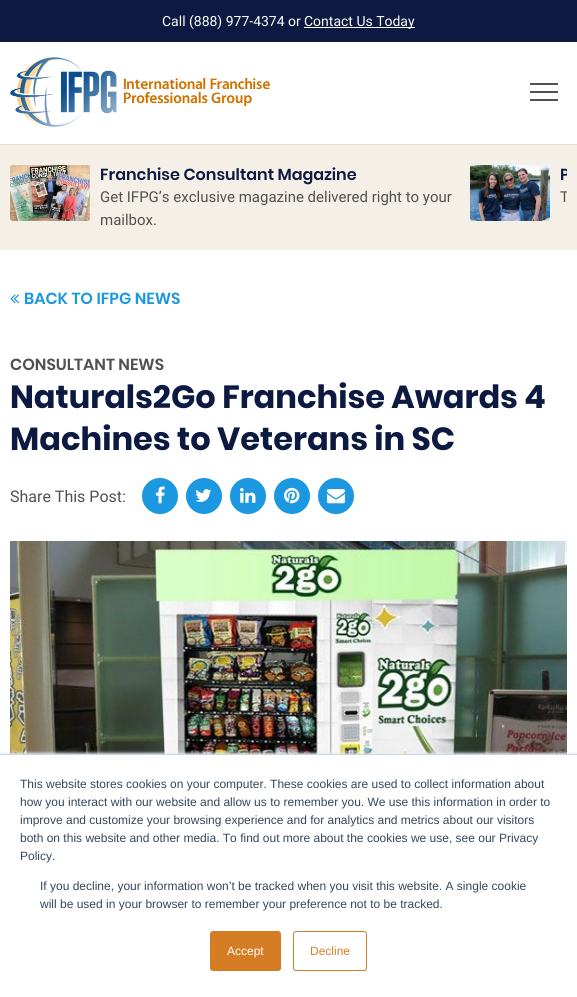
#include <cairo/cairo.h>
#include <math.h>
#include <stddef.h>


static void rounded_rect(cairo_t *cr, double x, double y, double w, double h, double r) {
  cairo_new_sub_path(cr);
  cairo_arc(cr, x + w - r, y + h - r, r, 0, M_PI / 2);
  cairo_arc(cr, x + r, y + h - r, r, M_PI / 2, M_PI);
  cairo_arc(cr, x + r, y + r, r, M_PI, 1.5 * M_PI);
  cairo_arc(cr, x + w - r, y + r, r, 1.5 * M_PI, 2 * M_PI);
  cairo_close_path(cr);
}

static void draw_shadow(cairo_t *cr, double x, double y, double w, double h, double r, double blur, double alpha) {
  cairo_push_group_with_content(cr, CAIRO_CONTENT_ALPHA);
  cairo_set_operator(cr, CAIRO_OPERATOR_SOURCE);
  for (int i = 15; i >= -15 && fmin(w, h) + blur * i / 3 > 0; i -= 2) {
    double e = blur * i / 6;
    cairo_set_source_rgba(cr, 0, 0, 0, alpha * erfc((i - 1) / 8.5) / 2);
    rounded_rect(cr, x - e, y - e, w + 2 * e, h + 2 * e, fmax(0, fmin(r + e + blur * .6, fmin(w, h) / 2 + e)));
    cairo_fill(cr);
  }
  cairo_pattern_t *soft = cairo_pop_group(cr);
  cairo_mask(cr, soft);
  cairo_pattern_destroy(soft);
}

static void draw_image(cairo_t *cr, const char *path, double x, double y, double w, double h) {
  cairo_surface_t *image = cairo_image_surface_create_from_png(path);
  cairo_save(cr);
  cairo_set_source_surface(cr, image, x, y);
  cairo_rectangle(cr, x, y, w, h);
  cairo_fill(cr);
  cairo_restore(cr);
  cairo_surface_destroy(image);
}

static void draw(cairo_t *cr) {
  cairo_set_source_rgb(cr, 1, 1, 1);
  cairo_paint(cr);
  cairo_set_source_rgb(cr, 225 / 255.0, 225 / 255.0, 225 / 255.0);
  cairo_rectangle(cr, 0, 144, 577, 1);
  cairo_fill(cr);
  cairo_set_source_rgb(cr, 12 / 255.0, 25 / 255.0, 65 / 255.0);
  cairo_rectangle(cr, 0, 0, 577, 42);
  cairo_fill(cr);
  cairo_set_source_rgb(cr, 1, 1, 1);
  cairo_rectangle(cr, 304, 27, 111, 1);
  cairo_fill(cr);
  draw_image(cr, "images/1.png", 10, 57, 260, 70);
  cairo_set_source_rgb(cr, 81 / 255.0, 80 / 255.0, 79 / 255.0);
  cairo_rectangle(cr, 530, 91, 28, 2);
  cairo_fill(cr);
  cairo_rectangle(cr, 530, 83, 28, 2);
  cairo_fill(cr);
  cairo_rectangle(cr, 530, 99, 28, 2);
  cairo_fill(cr);
  cairo_set_source_rgb(cr, 244 / 255.0, 240 / 255.0, 231 / 255.0);
  cairo_rectangle(cr, 0, 145, 577, 105);
  cairo_fill(cr);
  draw_image(cr, "images/2.png", 10, 165, 80, 56);
  draw_image(cr, "images/3.png", 470, 165, 80, 56);
  draw_image(cr, "images/4.png", 10, 294, 9, 10);
  cairo_set_source_rgb(cr, 27 / 255.0, 152 / 255.0, 224 / 255.0);
  cairo_arc(cr, 160, 496, 18, 0, 2 * M_PI);
  cairo_fill(cr);
  draw_image(cr, "images/5.png", 155, 486, 10, 18);
  cairo_arc(cr, 204, 496, 18, 0, 2 * M_PI);
  cairo_fill(cr);
  draw_image(cr, "images/6.png", 195, 489, 17, 13);
  cairo_arc(cr, 248, 496, 18, 0, 2 * M_PI);
  cairo_fill(cr);
  draw_image(cr, "images/7.png", 240, 488, 16, 15);
  cairo_arc(cr, 292, 496, 18, 0, 2 * M_PI);
  cairo_fill(cr);
  draw_image(cr, "images/8.png", 284, 487, 16, 17);
  cairo_arc(cr, 336, 496, 18, 0, 2 * M_PI);
  cairo_fill(cr);
  draw_image(cr, "images/9.png", 327, 489, 18, 15);
  draw_image(cr, "images/10.png", 10, 541, 557, 213);
  cairo_set_source_rgb(cr, 234 / 255.0, 240 / 255.0, 246 / 255.0);
  draw_shadow(cr, 0, 753, 577, 243, 0, 1.5, 1);
  cairo_set_source_rgb(cr, 1, 1, 1);
  cairo_rectangle(cr, 0, 755, 577, 242);
  cairo_fill(cr);
  cairo_set_source_rgb(cr, 203 / 255.0, 214 / 255.0, 226 / 255.0);
  cairo_rectangle(cr, 0, 754, 577, 1);
  cairo_fill(cr);
  cairo_set_source_rgb(cr, 213 / 255.0, 125 / 255.0, 36 / 255.0);
  rounded_rect(cr, 210.5, 931.5, 70, 39, 2.5);
  cairo_fill_preserve(cr);
  cairo_set_line_width(cr, 1);
  cairo_stroke(cr);
  rounded_rect(cr, 293.5, 931.5, 73, 39, 2.5);
  cairo_stroke(cr);
  cairo_select_font_face(cr, "Roboto", CAIRO_FONT_SLANT_NORMAL, CAIRO_FONT_WEIGHT_NORMAL);
  cairo_set_font_size(cr, 14);
  cairo_set_source_rgb(cr, 1, 1, 1);
  cairo_move_to(cr, 162, 26);
  cairo_show_text(cr, "Call (888) 977-4374 or");
  cairo_move_to(cr, 304, 26);
  cairo_show_text(cr, "Contact Us Today");
  cairo_select_font_face(cr, "Poppins SemiBold", CAIRO_FONT_SLANT_NORMAL, CAIRO_FONT_WEIGHT_NORMAL);
  cairo_set_font_size(cr, 16);
  cairo_set_source_rgb(cr, 12 / 255.0, 25 / 255.0, 65 / 255.0);
  cairo_move_to(cr, 100, 180);
  cairo_show_text(cr, "Franchise Consultant Magazine");
  cairo_select_font_face(cr, "Roboto", CAIRO_FONT_SLANT_NORMAL, CAIRO_FONT_WEIGHT_NORMAL);
  cairo_set_font_size(cr, 15);
  cairo_set_source_rgb(cr, 81 / 255.0, 80 / 255.0, 79 / 255.0);
  cairo_move_to(cr, 100, 202);
  cairo_show_text(cr, "Get IFPG’s exclusive magazine delivered right to your");
  cairo_move_to(cr, 100, 225);
  cairo_show_text(cr, "mailbox.");
  cairo_save(cr);
  cairo_rectangle(cr, 10, 165, 557, 65);
  cairo_clip(cr);
  cairo_select_font_face(cr, "Poppins SemiBold", CAIRO_FONT_SLANT_NORMAL, CAIRO_FONT_WEIGHT_NORMAL);
  cairo_set_font_size(cr, 16);
  cairo_set_source_rgb(cr, 12 / 255.0, 25 / 255.0, 65 / 255.0);
  cairo_move_to(cr, 560, 180);
  cairo_show_text(cr, "P");
  cairo_select_font_face(cr, "Roboto", CAIRO_FONT_SLANT_NORMAL, CAIRO_FONT_WEIGHT_NORMAL);
  cairo_set_font_size(cr, 15);
  cairo_set_source_rgb(cr, 81 / 255.0, 80 / 255.0, 79 / 255.0);
  cairo_move_to(cr, 560, 202);
  cairo_show_text(cr, "T");
  cairo_restore(cr);
  cairo_select_font_face(cr, "Poppins SemiBold", CAIRO_FONT_SLANT_NORMAL, CAIRO_FONT_WEIGHT_NORMAL);
  cairo_set_font_size(cr, 16);
  cairo_set_source_rgb(cr, 27 / 255.0, 152 / 255.0, 224 / 255.0);
  cairo_move_to(cr, 24, 304);
  cairo_show_text(cr, "BACK TO IFPG NEWS");
  cairo_set_source_rgb(cr, 81 / 255.0, 80 / 255.0, 79 / 255.0);
  cairo_move_to(cr, 10, 370);
  cairo_show_text(cr, "CONSULTANT NEWS");
  cairo_select_font_face(cr, "Poppins", CAIRO_FONT_SLANT_NORMAL, CAIRO_FONT_WEIGHT_BOLD);
  cairo_set_font_size(cr, 32);
  cairo_set_source_rgb(cr, 12 / 255.0, 25 / 255.0, 65 / 255.0);
  cairo_move_to(cr, 10, 408);
  cairo_show_text(cr, "Naturals2Go Franchise Awards 4");
  cairo_move_to(cr, 10, 450);
  cairo_show_text(cr, "Machines to Veterans in SC");
  cairo_select_font_face(cr, "Roboto", CAIRO_FONT_SLANT_NORMAL, CAIRO_FONT_WEIGHT_NORMAL);
  cairo_set_font_size(cr, 16);
  cairo_set_source_rgb(cr, 81 / 255.0, 80 / 255.0, 79 / 255.0);
  cairo_move_to(cr, 10, 502);
  cairo_show_text(cr, "Share This Post:");
  cairo_select_font_face(cr, "Liberation Sans", CAIRO_FONT_SLANT_NORMAL, CAIRO_FONT_WEIGHT_NORMAL);
  cairo_set_font_size(cr, 12);
  cairo_set_source_rgb(cr, 51 / 255.0, 71 / 255.0, 91 / 255.0);
  cairo_move_to(cr, 20, 788);
  cairo_show_text(cr, "This website stores cookies on your computer. These cookies are used to collect information about");
  cairo_move_to(cr, 20, 806);
  cairo_show_text(cr, "how you interact with our website and allow us to remember you. We use this information in order to");
  cairo_move_to(cr, 20, 824);
  cairo_show_text(cr, "improve and customize your browsing experience and for analytics and metrics about our visitors");
  cairo_move_to(cr, 20, 842);
  cairo_show_text(cr, "both on this website and other media. To find out more about the cookies we use, see our Privacy");
  cairo_move_to(cr, 20, 860);
  cairo_show_text(cr, "Policy.");
  cairo_move_to(cr, 40, 890);
  cairo_show_text(cr, "If you decline, your information won’t be tracked when you visit this website. A single cookie");
  cairo_move_to(cr, 40, 908);
  cairo_show_text(cr, "will be used in your browser to remember your preference not to be tracked.");
  cairo_set_source_rgb(cr, 1, 1, 1);
  cairo_move_to(cr, 227, 955);
  cairo_show_text(cr, "Accept");
  cairo_set_source_rgb(cr, 213 / 255.0, 125 / 255.0, 36 / 255.0);
  cairo_move_to(cr, 310, 955);
  cairo_show_text(cr, "Decline");
}

int main(void) {
  cairo_surface_t *surface = cairo_image_surface_create(CAIRO_FORMAT_RGB24, 577, 997);
  cairo_t *cr = cairo_create(surface);
  cairo_font_options_t *options = cairo_font_options_create();
  cairo_font_options_set_hint_metrics(options, CAIRO_HINT_METRICS_OFF);
  cairo_font_options_set_hint_style(options, CAIRO_HINT_STYLE_NONE);
  cairo_set_font_options(cr, options);
  cairo_set_miter_limit(cr, 4);
  draw(cr);
  cairo_surface_write_to_png(surface, "out.png");
  cairo_font_options_destroy(options);
  cairo_destroy(cr);
  cairo_surface_destroy(surface);
  return 0;
}
